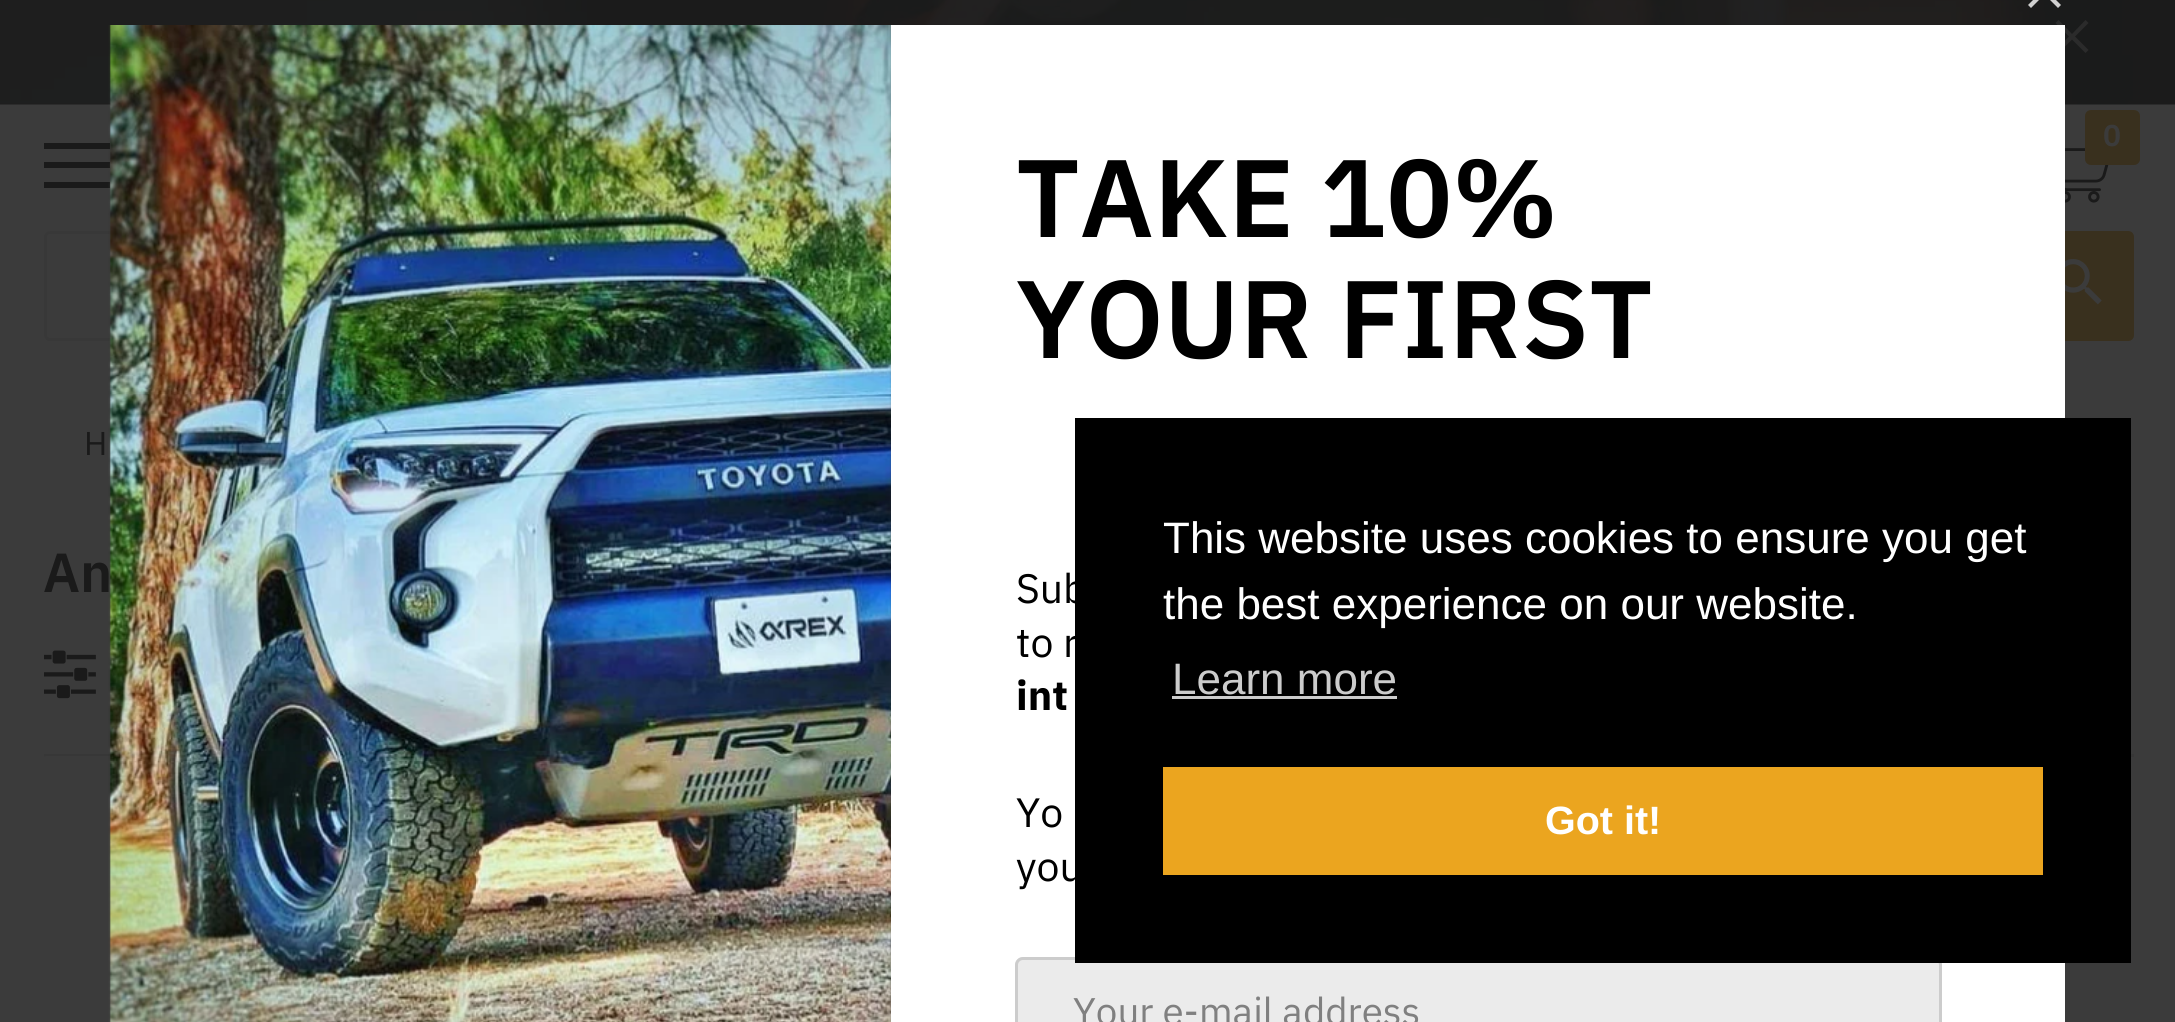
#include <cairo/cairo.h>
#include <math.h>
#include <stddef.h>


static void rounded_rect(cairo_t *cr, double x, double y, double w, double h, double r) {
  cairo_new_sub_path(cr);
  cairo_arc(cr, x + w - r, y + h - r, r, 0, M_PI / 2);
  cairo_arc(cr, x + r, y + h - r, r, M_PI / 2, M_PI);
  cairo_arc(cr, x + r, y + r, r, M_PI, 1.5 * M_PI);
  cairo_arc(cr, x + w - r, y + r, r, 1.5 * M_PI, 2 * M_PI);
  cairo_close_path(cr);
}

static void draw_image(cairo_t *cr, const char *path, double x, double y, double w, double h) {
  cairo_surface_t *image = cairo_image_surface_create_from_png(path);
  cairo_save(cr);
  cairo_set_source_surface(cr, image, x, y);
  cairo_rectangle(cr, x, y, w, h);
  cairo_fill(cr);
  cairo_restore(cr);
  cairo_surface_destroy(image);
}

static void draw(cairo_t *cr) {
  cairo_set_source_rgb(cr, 59 / 255.0, 59 / 255.0, 59 / 255.0);
  cairo_paint(cr);
  draw_image(cr, "images/1.png", 0, 0, 2175, 105);
  cairo_set_source_rgb(cr, 43 / 255.0, 43 / 255.0, 43 / 255.0);
  cairo_new_path(cr);
  cairo_move_to(cr, 2072, 34);
  cairo_line_to(cr, 2058.5, 20);
  cairo_line_to(cr, 2055.5, 23);
  cairo_line_to(cr, 2069, 36.5);
  cairo_line_to(cr, 2055.5, 50);
  cairo_line_to(cr, 2058.5, 53);
  cairo_line_to(cr, 2072, 39.5);
  cairo_line_to(cr, 2085.5, 53);
  cairo_line_to(cr, 2088.5, 50);
  cairo_line_to(cr, 2075, 36.5);
  cairo_line_to(cr, 2088.5, 23);
  cairo_line_to(cr, 2085.5, 20);
  cairo_close_path(cr);
  cairo_fill(cr);
  draw_image(cr, "images/2.png", 2065, 148, 44, 55);
  cairo_set_source_rgb(cr, 57 / 255.0, 48 / 255.0, 30 / 255.0);
  rounded_rect(cr, 2085, 110, 55, 55, 6);
  cairo_fill(cr);
  cairo_set_source_rgb(cr, 26 / 255.0, 26 / 255.0, 26 / 255.0);
  cairo_rectangle(cr, 44, 143, 66, 6);
  cairo_fill(cr);
  cairo_rectangle(cr, 44, 162, 66, 6);
  cairo_fill(cr);
  cairo_rectangle(cr, 44, 182, 66, 6);
  cairo_fill(cr);
  rounded_rect(cr, 45.5, 232.5, 2087, 107, 4.5);
  cairo_set_source_rgb(cr, 56 / 255.0, 56 / 255.0, 56 / 255.0);
  cairo_set_line_width(cr, 3);
  cairo_stroke(cr);
  cairo_set_source_rgb(cr, 57 / 255.0, 48 / 255.0, 30 / 255.0);
  cairo_new_path(cr);
  cairo_move_to(cr, 2024, 231);
  cairo_line_to(cr, 2128, 231);
  cairo_curve_to(cr, 2131.5, 231, 2134, 233.5, 2134, 237);
  cairo_line_to(cr, 2134, 335);
  cairo_curve_to(cr, 2134, 338.5, 2131.5, 341, 2128, 341);
  cairo_line_to(cr, 2024, 341);
  cairo_close_path(cr);
  cairo_fill(cr);
  draw_image(cr, "images/3.png", 2065, 259, 37, 46);
  cairo_set_source_rgb(cr, 55 / 255.0, 55 / 255.0, 55 / 255.0);
  cairo_rectangle(cr, 44, 754, 2090, 3);
  cairo_fill(cr);
  draw_image(cr, "images/4.png", 44, 650, 52, 49);
  draw_image(cr, "images/5.png", 44, 756, 67, 266);
  draw_image(cr, "images/6.png", 889, 756, 2, 266);
  draw_image(cr, "images/7.png", 2065, 963, 47, 59);
  cairo_set_source_rgb(cr, 209 / 255.0, 209 / 255.0, 209 / 255.0);
  cairo_new_path(cr);
  cairo_move_to(cr, 2044.5, -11.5);
  cairo_line_to(cr, 2031, -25);
  cairo_line_to(cr, 2028, -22.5);
  cairo_line_to(cr, 2041.5, -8.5);
  cairo_line_to(cr, 2028, 5);
  cairo_line_to(cr, 2031, 8);
  cairo_line_to(cr, 2044.5, -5.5);
  cairo_line_to(cr, 2058, 8);
  cairo_line_to(cr, 2061, 5);
  cairo_line_to(cr, 2047.5, -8.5);
  cairo_line_to(cr, 2061, -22);
  cairo_line_to(cr, 2058, -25);
  cairo_close_path(cr);
  cairo_fill(cr);
  cairo_set_source_rgb(cr, 1, 1, 1);
  cairo_rectangle(cr, 891, 25, 1174, 997);
  cairo_fill(cr);
  cairo_set_source_rgb(cr, 235 / 255.0, 235 / 255.0, 235 / 255.0);
  cairo_new_path(cr);
  cairo_move_to(cr, 1023, 957);
  cairo_line_to(cr, 1934, 957);
  cairo_curve_to(cr, 1938.5, 957, 1942, 960.5, 1942, 965);
  cairo_line_to(cr, 1942, 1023);
  cairo_line_to(cr, 1015, 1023);
  cairo_line_to(cr, 1015, 965);
  cairo_curve_to(cr, 1015, 960.5, 1018.5, 957, 1023, 957);
  cairo_close_path(cr);
  cairo_fill(cr);
  rounded_rect(cr, 1016.5, 958.5, 924, 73, 6.5);
  cairo_set_source_rgb(cr, 204 / 255.0, 204 / 255.0, 204 / 255.0);
  cairo_stroke(cr);
  cairo_set_source_rgb(cr, 0, 0, 0);
  cairo_rectangle(cr, 1075, 418, 1056, 545);
  cairo_fill(cr);
  cairo_set_source_rgb(cr, 204 / 255.0, 204 / 255.0, 204 / 255.0);
  cairo_rectangle(cr, 1172, 696, 225, 3);
  cairo_fill(cr);
  cairo_set_source_rgb(cr, 235 / 255.0, 165 / 255.0, 31 / 255.0);
  cairo_rectangle(cr, 1163, 767, 880, 108);
  cairo_fill(cr);
  cairo_select_font_face(cr, "IBM Plex Sans SemiBold", CAIRO_FONT_SLANT_NORMAL, CAIRO_FONT_WEIGHT_NORMAL);
  cairo_set_font_size(cr, 30);
  cairo_set_source_rgb(cr, 59 / 255.0, 59 / 255.0, 59 / 255.0);
  cairo_move_to(cr, 2103, 146);
  cairo_show_text(cr, "0");
  cairo_select_font_face(cr, "IBM Plex Sans", CAIRO_FONT_SLANT_NORMAL, CAIRO_FONT_WEIGHT_NORMAL);
  cairo_set_font_size(cr, 33);
  cairo_set_source_rgb(cr, 26 / 255.0, 26 / 255.0, 26 / 255.0);
  cairo_move_to(cr, 84, 455);
  cairo_show_text(cr, "H");
  cairo_select_font_face(cr, "IBM Plex Sans SemiBold", CAIRO_FONT_SLANT_NORMAL, CAIRO_FONT_WEIGHT_NORMAL);
  cairo_set_font_size(cr, 55);
  cairo_move_to(cr, 43, 592);
  cairo_show_text(cr, "An");
  draw_image(cr, "images/8.png", 108, 25, 783, 997);
  cairo_set_font_size(cr, 110);
  cairo_set_source_rgb(cr, 0, 0, 0);
  cairo_move_to(cr, 1016, 237);
  cairo_show_text(cr, "TAKE 10%");
  cairo_move_to(cr, 1016, 358);
  cairo_show_text(cr, "YOUR FIRST");
  cairo_select_font_face(cr, "IBM Plex Sans", CAIRO_FONT_SLANT_NORMAL, CAIRO_FONT_WEIGHT_NORMAL);
  cairo_set_font_size(cr, 41);
  cairo_move_to(cr, 1016, 603);
  cairo_show_text(cr, "Sub");
  cairo_move_to(cr, 1016, 657);
  cairo_show_text(cr, "to r");
  cairo_select_font_face(cr, "IBM Plex Sans", CAIRO_FONT_SLANT_NORMAL, CAIRO_FONT_WEIGHT_BOLD);
  cairo_move_to(cr, 1016, 710);
  cairo_show_text(cr, "int");
  cairo_select_font_face(cr, "IBM Plex Sans", CAIRO_FONT_SLANT_NORMAL, CAIRO_FONT_WEIGHT_NORMAL);
  cairo_move_to(cr, 1016, 827);
  cairo_show_text(cr, "Yo");
  cairo_move_to(cr, 1016, 881);
  cairo_show_text(cr, "you");
  cairo_set_font_size(cr, 38.5);
  cairo_set_source_rgb(cr, 128 / 255.0, 128 / 255.0, 128 / 255.0);
  cairo_move_to(cr, 1073, 1025);
  cairo_show_text(cr, "Your e-mail address");
  cairo_select_font_face(cr, "Liberation Sans", CAIRO_FONT_SLANT_NORMAL, CAIRO_FONT_WEIGHT_NORMAL);
  cairo_set_font_size(cr, 44);
  cairo_set_source_rgb(cr, 1, 1, 1);
  cairo_move_to(cr, 1163, 553);
  cairo_show_text(cr, "This website uses cookies to ensure you get");
  cairo_move_to(cr, 1163, 619);
  cairo_show_text(cr, "the best experience on our website.");
  cairo_set_source_rgb(cr, 204 / 255.0, 204 / 255.0, 204 / 255.0);
  cairo_move_to(cr, 1172, 694);
  cairo_show_text(cr, "Learn more");
  cairo_select_font_face(cr, "Liberation Sans", CAIRO_FONT_SLANT_NORMAL, CAIRO_FONT_WEIGHT_BOLD);
  cairo_set_font_size(cr, 39.5);
  cairo_set_source_rgb(cr, 1, 1, 1);
  cairo_move_to(cr, 1545, 834);
  cairo_show_text(cr, "Got it!");
}

int main(void) {
  cairo_surface_t *surface = cairo_image_surface_create(CAIRO_FORMAT_RGB24, 2175, 1022);
  cairo_t *cr = cairo_create(surface);
  cairo_font_options_t *options = cairo_font_options_create();
  cairo_font_options_set_hint_metrics(options, CAIRO_HINT_METRICS_OFF);
  cairo_font_options_set_hint_style(options, CAIRO_HINT_STYLE_NONE);
  cairo_set_font_options(cr, options);
  cairo_set_miter_limit(cr, 4);
  draw(cr);
  cairo_surface_write_to_png(surface, "out.png");
  cairo_font_options_destroy(options);
  cairo_destroy(cr);
  cairo_surface_destroy(surface);
  return 0;
}
